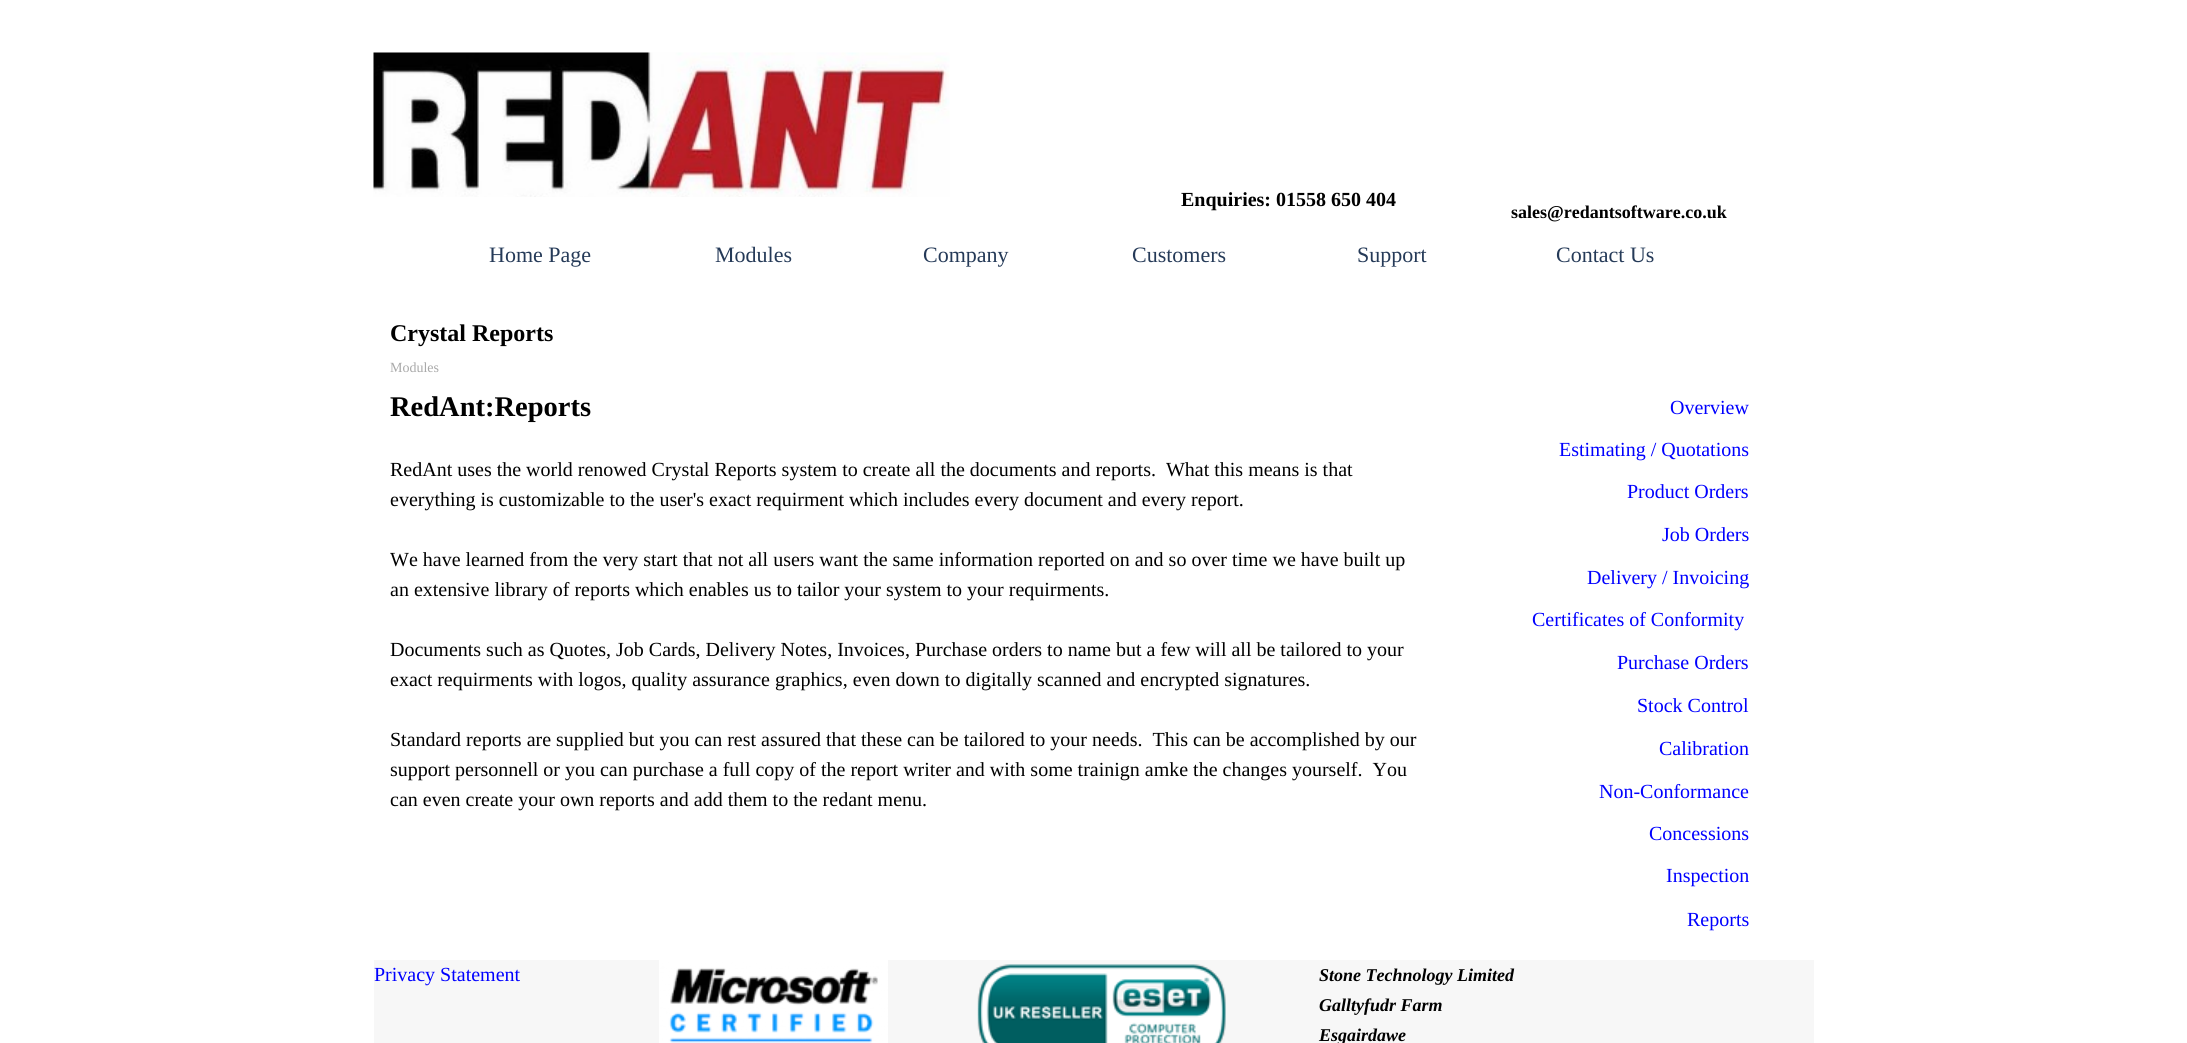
#include <cairo/cairo.h>
#include <math.h>
#include <stddef.h>


static void draw_image(cairo_t *cr, const char *path, double x, double y, double w, double h) {
  cairo_surface_t *image = cairo_image_surface_create_from_png(path);
  cairo_save(cr);
  cairo_set_source_surface(cr, image, x, y);
  cairo_rectangle(cr, x, y, w, h);
  cairo_fill(cr);
  cairo_restore(cr);
  cairo_surface_destroy(image);
}

static void draw(cairo_t *cr) {
  cairo_set_source_rgb(cr, 1, 1, 1);
  cairo_paint(cr);
  draw_image(cr, "images/1.png", 373, 52, 577, 145);
  cairo_set_source_rgb(cr, 247 / 255.0, 247 / 255.0, 247 / 255.0);
  cairo_rectangle(cr, 374, 960, 1440, 83);
  cairo_fill(cr);
  draw_image(cr, "images/2.png", 659, 960, 229, 83);
  draw_image(cr, "images/3.png", 977, 964, 249, 79);
  cairo_select_font_face(cr, "Liberation Serif", CAIRO_FONT_SLANT_NORMAL, CAIRO_FONT_WEIGHT_BOLD);
  cairo_set_font_size(cr, 20);
  cairo_set_source_rgb(cr, 0, 0, 0);
  cairo_move_to(cr, 1181, 206);
  cairo_show_text(cr, "Enquiries: 01558 650 404");
  cairo_set_font_size(cr, 18);
  cairo_move_to(cr, 1511, 218);
  cairo_show_text(cr, "sales@redantsoftware.co.uk");
  cairo_select_font_face(cr, "Liberation Serif", CAIRO_FONT_SLANT_NORMAL, CAIRO_FONT_WEIGHT_NORMAL);
  cairo_set_font_size(cr, 22);
  cairo_set_source_rgb(cr, 37 / 255.0, 58 / 255.0, 88 / 255.0);
  cairo_move_to(cr, 489, 262);
  cairo_show_text(cr, "Home Page");
  cairo_move_to(cr, 715, 262);
  cairo_show_text(cr, "Modules");
  cairo_move_to(cr, 923, 262);
  cairo_show_text(cr, "Company");
  cairo_move_to(cr, 1132, 262);
  cairo_show_text(cr, "Customers");
  cairo_move_to(cr, 1357, 262);
  cairo_show_text(cr, "Support");
  cairo_move_to(cr, 1556, 262);
  cairo_show_text(cr, "Contact Us");
  cairo_select_font_face(cr, "Liberation Serif", CAIRO_FONT_SLANT_NORMAL, CAIRO_FONT_WEIGHT_BOLD);
  cairo_set_font_size(cr, 24);
  cairo_set_source_rgb(cr, 0, 0, 0);
  cairo_move_to(cr, 390, 341);
  cairo_show_text(cr, "Crystal Reports");
  cairo_select_font_face(cr, "Liberation Serif", CAIRO_FONT_SLANT_NORMAL, CAIRO_FONT_WEIGHT_NORMAL);
  cairo_set_font_size(cr, 14);
  cairo_set_source_rgb(cr, 169 / 255.0, 169 / 255.0, 169 / 255.0);
  cairo_move_to(cr, 390, 372);
  cairo_show_text(cr, "Modules");
  cairo_select_font_face(cr, "Liberation Serif", CAIRO_FONT_SLANT_NORMAL, CAIRO_FONT_WEIGHT_BOLD);
  cairo_set_font_size(cr, 28.5);
  cairo_set_source_rgb(cr, 0, 0, 0);
  cairo_move_to(cr, 390, 416);
  cairo_show_text(cr, "RedAnt:Reports");
  cairo_select_font_face(cr, "Liberation Serif", CAIRO_FONT_SLANT_NORMAL, CAIRO_FONT_WEIGHT_NORMAL);
  cairo_set_font_size(cr, 20);
  cairo_move_to(cr, 390, 476);
  cairo_show_text(cr, "RedAnt uses the world renowed Crystal Reports system to create all the documents and reports.  What this means is that");
  cairo_move_to(cr, 390, 506);
  cairo_show_text(cr, "everything is customizable to the user's exact requirment which includes every document and every report.");
  cairo_move_to(cr, 390, 566);
  cairo_show_text(cr, "We have learned from the very start that not all users want the same information reported on and so over time we have built up");
  cairo_move_to(cr, 390, 596);
  cairo_show_text(cr, "an extensive library of reports which enables us to tailor your system to your requirments.");
  cairo_move_to(cr, 390, 656);
  cairo_show_text(cr, "Documents such as Quotes, Job Cards, Delivery Notes, Invoices, Purchase orders to name but a few will all be tailored to your");
  cairo_move_to(cr, 390, 686);
  cairo_show_text(cr, "exact requirments with logos, quality assurance graphics, even down to digitally scanned and encrypted signatures.");
  cairo_move_to(cr, 390, 746);
  cairo_show_text(cr, "Standard reports are supplied but you can rest assured that these can be tailored to your needs.  This can be accomplished by our");
  cairo_move_to(cr, 390, 776);
  cairo_show_text(cr, "support personnell or you can purchase a full copy of the report writer and with some trainign amke the changes yourself.  You");
  cairo_move_to(cr, 390, 806);
  cairo_show_text(cr, "can even create your own reports and add them to the redant menu.");
  cairo_set_source_rgb(cr, 0, 0, 1);
  cairo_move_to(cr, 1670, 414);
  cairo_show_text(cr, "Overview");
  cairo_move_to(cr, 1559, 456);
  cairo_show_text(cr, "Estimating / Quotations");
  cairo_move_to(cr, 1627, 498);
  cairo_show_text(cr, "Product Orders");
  cairo_move_to(cr, 1662, 541);
  cairo_show_text(cr, "Job Orders");
  cairo_move_to(cr, 1587, 584);
  cairo_show_text(cr, "Delivery / Invoicing");
  cairo_move_to(cr, 1532, 626);
  cairo_show_text(cr, "Certificates of Conformity");
  cairo_move_to(cr, 1617, 669);
  cairo_show_text(cr, "Purchase Orders");
  cairo_move_to(cr, 1637, 712);
  cairo_show_text(cr, "Stock Control");
  cairo_move_to(cr, 1659, 755);
  cairo_show_text(cr, "Calibration");
  cairo_move_to(cr, 1599, 798);
  cairo_show_text(cr, "Non-Conformance");
  cairo_move_to(cr, 1649, 840);
  cairo_show_text(cr, "Concessions");
  cairo_move_to(cr, 1666, 882);
  cairo_show_text(cr, "Inspection");
  cairo_move_to(cr, 1687, 926);
  cairo_show_text(cr, "Reports");
  cairo_move_to(cr, 374, 981);
  cairo_show_text(cr, "Privacy Statement");
  cairo_select_font_face(cr, "Liberation Serif", CAIRO_FONT_SLANT_ITALIC, CAIRO_FONT_WEIGHT_BOLD);
  cairo_set_font_size(cr, 18);
  cairo_set_source_rgb(cr, 0, 0, 0);
  cairo_move_to(cr, 1319, 981);
  cairo_show_text(cr, "Stone Technology Limited");
  cairo_move_to(cr, 1319, 1011);
  cairo_show_text(cr, "Galltyfudr Farm");
  cairo_move_to(cr, 1319, 1041);
  cairo_show_text(cr, "Esgairdawe");
}

int main(void) {
  cairo_surface_t *surface = cairo_image_surface_create(CAIRO_FORMAT_RGB24, 2187, 1043);
  cairo_t *cr = cairo_create(surface);
  cairo_font_options_t *options = cairo_font_options_create();
  cairo_font_options_set_hint_metrics(options, CAIRO_HINT_METRICS_OFF);
  cairo_font_options_set_hint_style(options, CAIRO_HINT_STYLE_NONE);
  cairo_set_font_options(cr, options);
  cairo_set_miter_limit(cr, 4);
  draw(cr);
  cairo_surface_write_to_png(surface, "out.png");
  cairo_font_options_destroy(options);
  cairo_destroy(cr);
  cairo_surface_destroy(surface);
  return 0;
}
